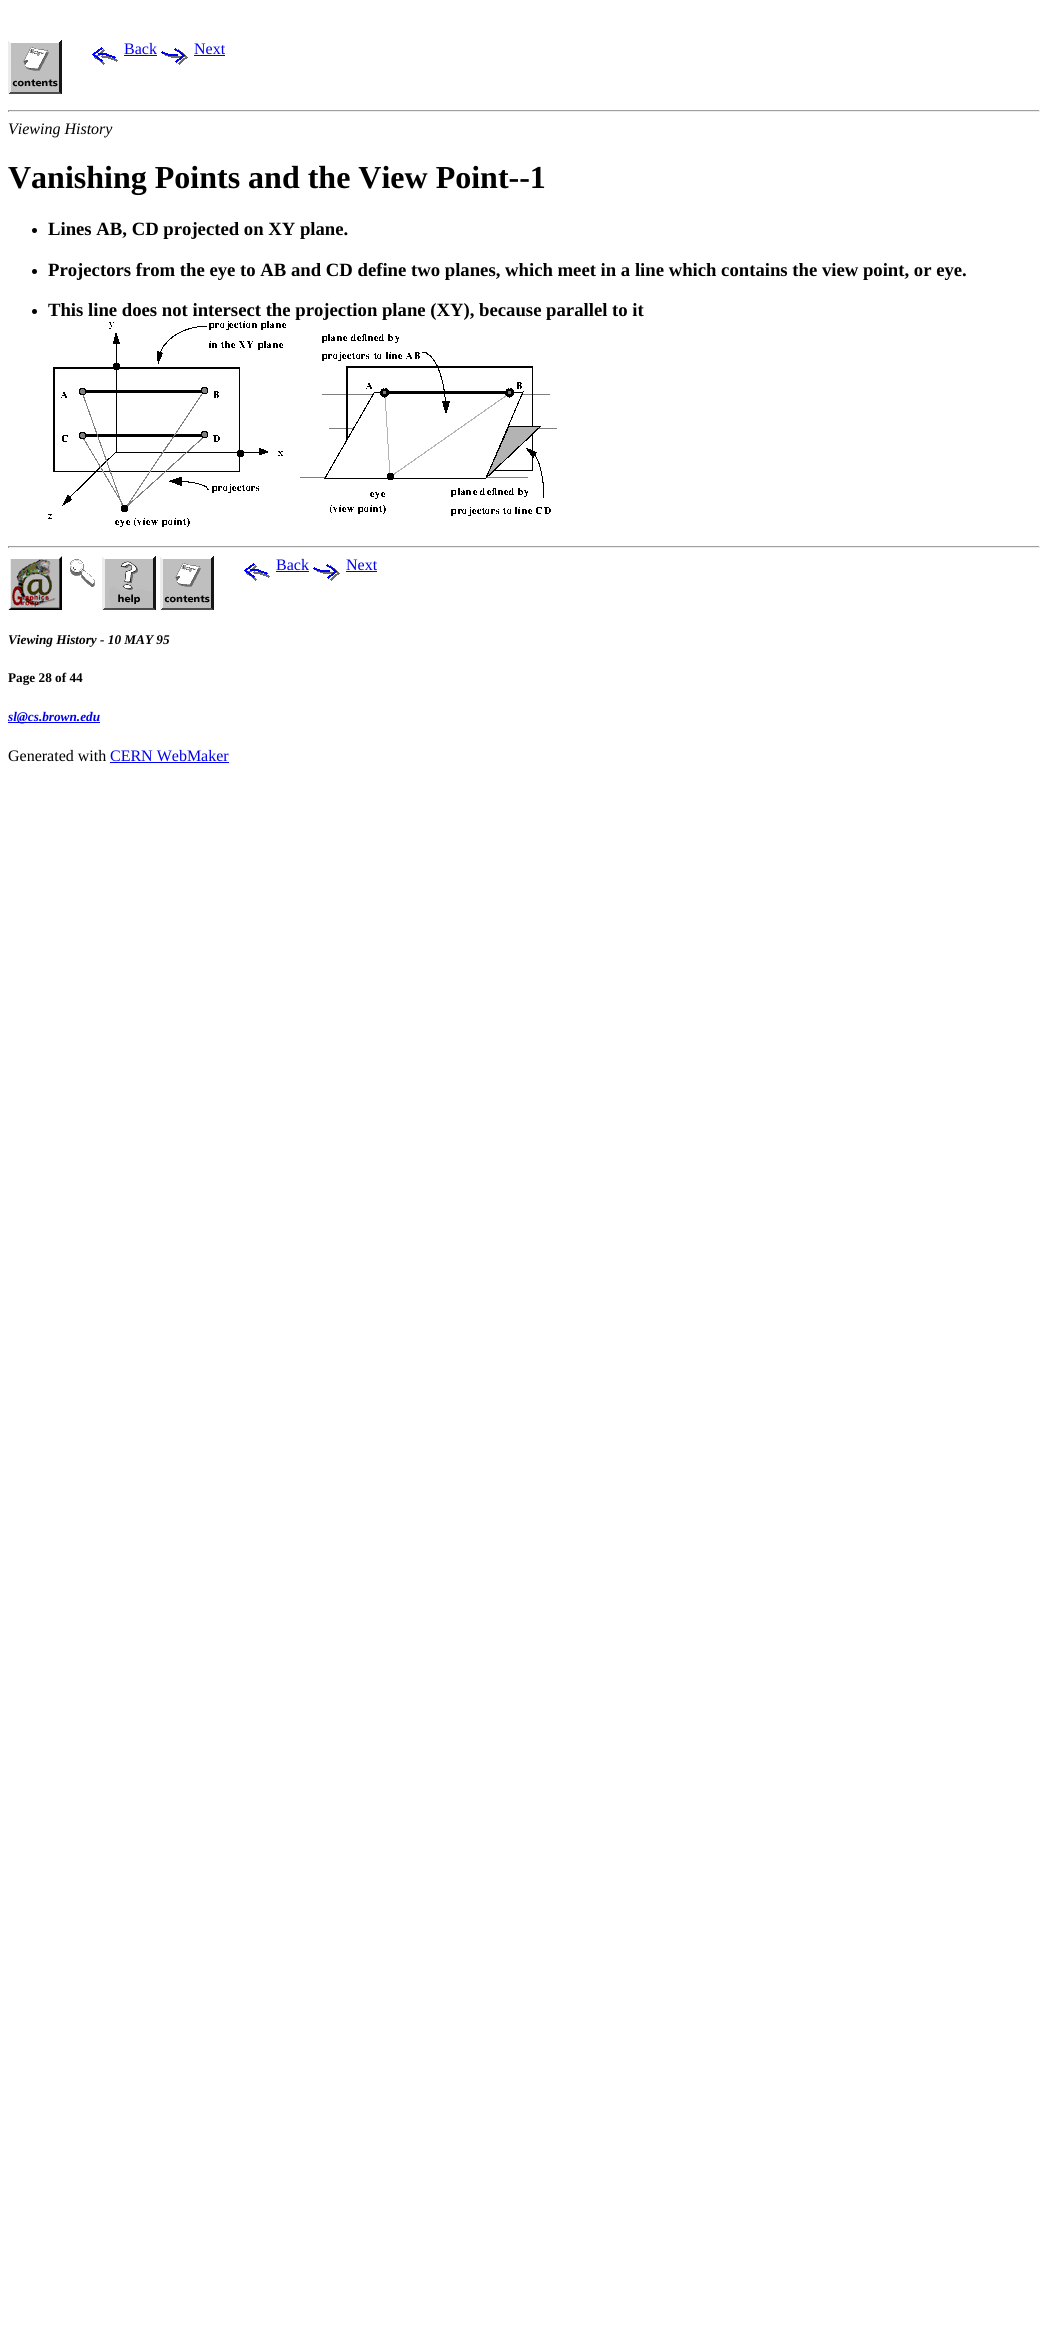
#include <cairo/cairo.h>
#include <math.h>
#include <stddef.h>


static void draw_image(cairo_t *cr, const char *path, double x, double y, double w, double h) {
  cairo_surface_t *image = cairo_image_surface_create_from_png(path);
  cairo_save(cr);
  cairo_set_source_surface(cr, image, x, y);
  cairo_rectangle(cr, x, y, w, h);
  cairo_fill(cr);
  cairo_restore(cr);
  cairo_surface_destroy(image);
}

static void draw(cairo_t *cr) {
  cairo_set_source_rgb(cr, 1, 1, 1);
  cairo_paint(cr);
  draw_image(cr, "images/1.png", 8, 40, 54, 54);
  draw_image(cr, "images/2.png", 92, 47, 26, 18);
  cairo_set_source_rgb(cr, 0, 0, 238 / 255.0);
  cairo_rectangle(cr, 124, 55, 33, 1);
  cairo_fill(cr);
  draw_image(cr, "images/3.png", 161, 48, 27, 17);
  cairo_rectangle(cr, 194, 55, 31, 1);
  cairo_fill(cr);
  cairo_set_source_rgb(cr, 159 / 255.0, 159 / 255.0, 159 / 255.0);
  cairo_rectangle(cr, 8, 110, 1032, 1);
  cairo_fill(cr);
  cairo_set_source_rgb(cr, 238 / 255.0, 238 / 255.0, 238 / 255.0);
  cairo_rectangle(cr, 1039, 110, 1, 2);
  cairo_fill(cr);
  cairo_rectangle(cr, 8, 111, 1032, 1);
  cairo_fill(cr);
  cairo_set_source_rgb(cr, 159 / 255.0, 159 / 255.0, 159 / 255.0);
  cairo_rectangle(cr, 8, 110, 1, 2);
  cairo_fill(cr);
  cairo_set_source_rgb(cr, 0, 0, 0);
  cairo_arc(cr, 34.5, 230.5, 2.5, 0, 2 * M_PI);
  cairo_fill(cr);
  cairo_arc(cr, 34.5, 271.5, 2.5, 0, 2 * M_PI);
  cairo_fill(cr);
  cairo_arc(cr, 34.5, 311.5, 2.5, 0, 2 * M_PI);
  cairo_fill(cr);
  draw_image(cr, "images/4.png", 48, 321, 509, 206);
  cairo_set_source_rgb(cr, 159 / 255.0, 159 / 255.0, 159 / 255.0);
  cairo_rectangle(cr, 8, 546, 1032, 1);
  cairo_fill(cr);
  cairo_set_source_rgb(cr, 238 / 255.0, 238 / 255.0, 238 / 255.0);
  cairo_rectangle(cr, 1039, 546, 1, 2);
  cairo_fill(cr);
  cairo_rectangle(cr, 8, 547, 1032, 1);
  cairo_fill(cr);
  cairo_set_source_rgb(cr, 159 / 255.0, 159 / 255.0, 159 / 255.0);
  cairo_rectangle(cr, 8, 546, 1, 2);
  cairo_fill(cr);
  draw_image(cr, "images/5.png", 8, 556, 54, 54);
  draw_image(cr, "images/6.png", 70, 559, 25, 28);
  draw_image(cr, "images/7.png", 102, 556, 54, 54);
  draw_image(cr, "images/1.png", 160, 556, 54, 54);
  draw_image(cr, "images/2.png", 244, 563, 26, 18);
  cairo_set_source_rgb(cr, 0, 0, 238 / 255.0);
  cairo_rectangle(cr, 276, 571, 33, 1);
  cairo_fill(cr);
  draw_image(cr, "images/3.png", 313, 564, 27, 17);
  cairo_rectangle(cr, 346, 571, 31, 1);
  cairo_fill(cr);
  cairo_rectangle(cr, 8, 722, 92, 1);
  cairo_fill(cr);
  cairo_rectangle(cr, 110, 762, 119, 1);
  cairo_fill(cr);
  cairo_select_font_face(cr, "Liberation Serif", CAIRO_FONT_SLANT_NORMAL, CAIRO_FONT_WEIGHT_NORMAL);
  cairo_set_font_size(cr, 16);
  cairo_move_to(cr, 124, 54);
  cairo_show_text(cr, "Back");
  cairo_move_to(cr, 194, 54);
  cairo_show_text(cr, "Next");
  cairo_select_font_face(cr, "Liberation Serif", CAIRO_FONT_SLANT_ITALIC, CAIRO_FONT_WEIGHT_NORMAL);
  cairo_set_source_rgb(cr, 0, 0, 0);
  cairo_move_to(cr, 8, 134);
  cairo_show_text(cr, "Viewing History");
  cairo_select_font_face(cr, "Liberation Serif", CAIRO_FONT_SLANT_NORMAL, CAIRO_FONT_WEIGHT_BOLD);
  cairo_set_font_size(cr, 32);
  cairo_move_to(cr, 8, 188);
  cairo_show_text(cr, "Vanishing Points and the View Point--1");
  cairo_set_font_size(cr, 18.7);
  cairo_move_to(cr, 48, 235);
  cairo_show_text(cr, "Lines AB, CD projected on XY plane.");
  cairo_move_to(cr, 48, 276);
  cairo_show_text(cr, "Projectors from the eye to AB and CD define two planes, which meet in a line which contains the view point, or eye.");
  cairo_move_to(cr, 48, 316);
  cairo_show_text(cr, "This line does not intersect the projection plane (XY), because parallel to it");
  cairo_select_font_face(cr, "Liberation Serif", CAIRO_FONT_SLANT_NORMAL, CAIRO_FONT_WEIGHT_NORMAL);
  cairo_set_font_size(cr, 16);
  cairo_set_source_rgb(cr, 0, 0, 238 / 255.0);
  cairo_move_to(cr, 276, 570);
  cairo_show_text(cr, "Back");
  cairo_move_to(cr, 346, 570);
  cairo_show_text(cr, "Next");
  cairo_select_font_face(cr, "Liberation Serif", CAIRO_FONT_SLANT_ITALIC, CAIRO_FONT_WEIGHT_BOLD);
  cairo_set_font_size(cr, 13.25);
  cairo_set_source_rgb(cr, 0, 0, 0);
  cairo_move_to(cr, 8, 644);
  cairo_show_text(cr, "Viewing History - 10 MAY 95");
  cairo_select_font_face(cr, "Liberation Serif", CAIRO_FONT_SLANT_NORMAL, CAIRO_FONT_WEIGHT_BOLD);
  cairo_move_to(cr, 8, 682);
  cairo_show_text(cr, "Page 28 of 44");
  cairo_select_font_face(cr, "Liberation Serif", CAIRO_FONT_SLANT_ITALIC, CAIRO_FONT_WEIGHT_BOLD);
  cairo_set_source_rgb(cr, 0, 0, 238 / 255.0);
  cairo_move_to(cr, 8, 721);
  cairo_show_text(cr, "sl@cs.brown.edu");
  cairo_select_font_face(cr, "Liberation Serif", CAIRO_FONT_SLANT_NORMAL, CAIRO_FONT_WEIGHT_NORMAL);
  cairo_set_font_size(cr, 16);
  cairo_set_source_rgb(cr, 0, 0, 0);
  cairo_move_to(cr, 8, 761);
  cairo_show_text(cr, "Generated with");
  cairo_set_source_rgb(cr, 0, 0, 238 / 255.0);
  cairo_move_to(cr, 110, 761);
  cairo_show_text(cr, "CERN WebMaker");
}

int main(void) {
  cairo_surface_t *surface = cairo_image_surface_create(CAIRO_FORMAT_RGB24, 1048, 2331);
  cairo_t *cr = cairo_create(surface);
  cairo_font_options_t *options = cairo_font_options_create();
  cairo_font_options_set_hint_metrics(options, CAIRO_HINT_METRICS_OFF);
  cairo_font_options_set_hint_style(options, CAIRO_HINT_STYLE_NONE);
  cairo_set_font_options(cr, options);
  cairo_set_miter_limit(cr, 4);
  draw(cr);
  cairo_surface_write_to_png(surface, "out.png");
  cairo_font_options_destroy(options);
  cairo_destroy(cr);
  cairo_surface_destroy(surface);
  return 0;
}
